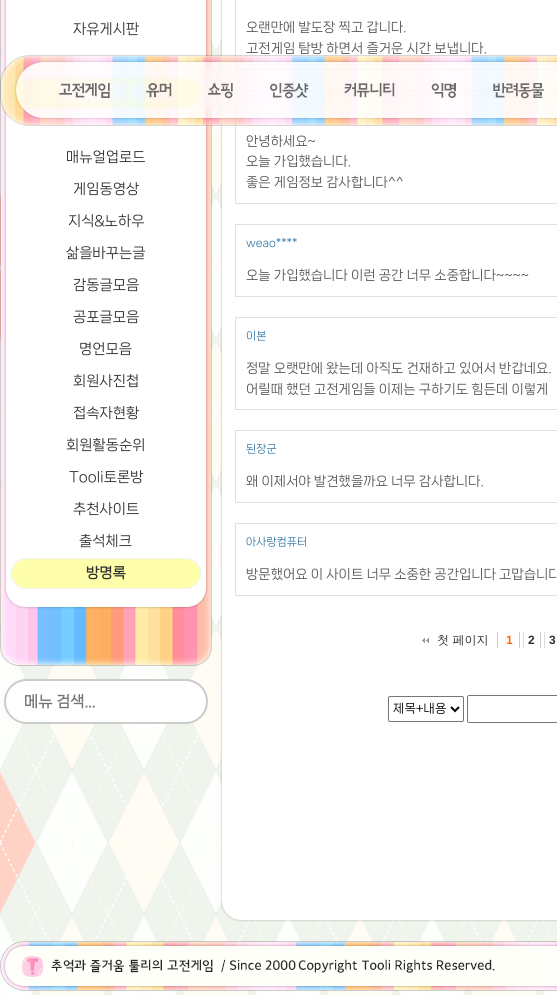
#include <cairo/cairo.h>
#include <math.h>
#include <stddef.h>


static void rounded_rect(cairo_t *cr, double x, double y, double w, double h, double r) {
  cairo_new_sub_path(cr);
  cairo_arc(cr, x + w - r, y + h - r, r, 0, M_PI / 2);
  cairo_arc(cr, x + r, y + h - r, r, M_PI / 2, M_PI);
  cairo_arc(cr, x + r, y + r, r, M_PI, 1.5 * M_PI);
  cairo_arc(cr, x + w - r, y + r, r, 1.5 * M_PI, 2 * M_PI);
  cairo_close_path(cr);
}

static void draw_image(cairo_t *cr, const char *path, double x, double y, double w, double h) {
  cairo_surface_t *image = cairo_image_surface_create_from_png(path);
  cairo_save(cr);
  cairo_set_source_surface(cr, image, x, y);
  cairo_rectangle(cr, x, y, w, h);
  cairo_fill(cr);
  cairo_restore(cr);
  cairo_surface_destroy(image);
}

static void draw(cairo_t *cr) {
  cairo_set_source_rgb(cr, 1, 1, 1);
  cairo_paint(cr);
  draw_image(cr, "images/1.png", 0, 0, 557, 995);
  draw_image(cr, "images/2.png", 0, 0, 212, 589);
  draw_image(cr, "images/3.png", 11, 77, 190, 512);
  cairo_set_source_rgb(cr, 1, 1, 1);
  cairo_rectangle(cr, 11, 110, 190, 31);
  cairo_fill(cr);
  cairo_rectangle(cr, 11, 142, 190, 31);
  cairo_fill(cr);
  cairo_rectangle(cr, 11, 174, 190, 31);
  cairo_fill(cr);
  cairo_rectangle(cr, 11, 206, 190, 31);
  cairo_fill(cr);
  cairo_rectangle(cr, 11, 238, 190, 31);
  cairo_fill(cr);
  cairo_rectangle(cr, 11, 270, 190, 31);
  cairo_fill(cr);
  cairo_rectangle(cr, 11, 302, 190, 31);
  cairo_fill(cr);
  cairo_rectangle(cr, 11, 334, 190, 31);
  cairo_fill(cr);
  cairo_rectangle(cr, 11, 366, 190, 31);
  cairo_fill(cr);
  cairo_rectangle(cr, 11, 398, 190, 31);
  cairo_fill(cr);
  cairo_rectangle(cr, 11, 430, 190, 31);
  cairo_fill(cr);
  cairo_rectangle(cr, 11, 462, 190, 31);
  cairo_fill(cr);
  cairo_rectangle(cr, 11, 494, 190, 31);
  cairo_fill(cr);
  cairo_rectangle(cr, 11, 526, 190, 31);
  cairo_fill(cr);
  draw_image(cr, "images/4.png", 0, 589, 212, 77);
  rounded_rect(cr, 5, 680, 202, 43, 21.5);
  cairo_fill_preserve(cr);
  cairo_set_source_rgb(cr, 204 / 255.0, 204 / 255.0, 204 / 255.0);
  cairo_stroke(cr);
  draw_image(cr, "images/5.png", 220, 0, 337, 901);
  cairo_rectangle(cr, 235.5, -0.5, 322, 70);
  cairo_set_source_rgb(cr, 224 / 255.0, 225 / 255.0, 219 / 255.0);
  cairo_set_line_width(cr, 1);
  cairo_stroke(cr);
  cairo_rectangle(cr, 235.5, 90.5, 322, 113);
  cairo_stroke(cr);
  cairo_rectangle(cr, 235.5, 224.5, 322, 72);
  cairo_stroke(cr);
  cairo_rectangle(cr, 235.5, 317.5, 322, 92);
  cairo_stroke(cr);
  cairo_rectangle(cr, 235.5, 430.5, 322, 72);
  cairo_stroke(cr);
  cairo_rectangle(cr, 235.5, 523.5, 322, 72);
  cairo_stroke(cr);
  draw_image(cr, "images/6.png", 422, 638, 7, 5);
  cairo_set_source_rgb(cr, 221 / 255.0, 221 / 255.0, 221 / 255.0);
  cairo_rectangle(cr, 523, 632, 1, 16);
  cairo_fill(cr);
  cairo_set_source_rgb(cr, 204 / 255.0, 204 / 255.0, 204 / 255.0);
  cairo_rectangle(cr, 497, 632, 1, 16);
  cairo_fill(cr);
  cairo_set_source_rgb(cr, 221 / 255.0, 221 / 255.0, 221 / 255.0);
  cairo_rectangle(cr, 544, 632, 1, 16);
  cairo_fill(cr);
  cairo_set_source_rgb(cr, 204 / 255.0, 204 / 255.0, 204 / 255.0);
  cairo_rectangle(cr, 519, 632, 1, 16);
  cairo_fill(cr);
  cairo_rectangle(cr, 540, 632, 1, 16);
  cairo_fill(cr);
  rounded_rect(cr, 388.5, 696.5, 75, 25, 1.5);
  cairo_set_source_rgb(cr, 118 / 255.0, 118 / 255.0, 118 / 255.0);
  cairo_stroke(cr);
  cairo_new_path(cr);
  cairo_move_to(cr, 451, 707);
  cairo_line_to(cr, 455, 711);
  cairo_line_to(cr, 459, 707);
  cairo_set_source_rgb(cr, 0, 0, 0);
  cairo_set_line_width(cr, 2);
  cairo_stroke(cr);
  rounded_rect(cr, 467.5, 695.5, 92, 27, 1.5);
  cairo_set_source_rgb(cr, 118 / 255.0, 118 / 255.0, 118 / 255.0);
  cairo_set_line_width(cr, 1);
  cairo_stroke(cr);
  draw_image(cr, "images/7.png", 220, 901, 337, 21);
  draw_image(cr, "images/8.png", 0, 55, 557, 71);
  draw_image(cr, "images/9.png", 59, 83, 67, 17);
  draw_image(cr, "images/10.png", 132, 83, 40, 17);
  draw_image(cr, "images/11.png", 206, 70, 42, 36);
  draw_image(cr, "images/12.png", 255, 83, 69, 23);
  draw_image(cr, "images/13.png", 329, 83, 81, 15);
  draw_image(cr, "images/14.png", 416, 83, 55, 15);
  draw_image(cr, "images/15.png", 478, 83, 79, 16);
  draw_image(cr, "images/16.png", 0, 941, 557, 50);
  cairo_select_font_face(cr, "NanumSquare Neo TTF", CAIRO_FONT_SLANT_NORMAL, CAIRO_FONT_WEIGHT_NORMAL);
  cairo_set_font_size(cr, 14);
  cairo_set_source_rgb(cr, 48 / 255.0, 48 / 255.0, 48 / 255.0);
  cairo_move_to(cr, 73, 33);
  cairo_show_text(cr, "자유게시판");
  cairo_move_to(cr, 66, 161);
  cairo_show_text(cr, "매뉴얼업로드");
  cairo_move_to(cr, 73, 193);
  cairo_show_text(cr, "게임동영상");
  cairo_move_to(cr, 68, 225);
  cairo_show_text(cr, "지식&노하우");
  cairo_move_to(cr, 66, 257);
  cairo_show_text(cr, "삶을바꾸는글");
  cairo_move_to(cr, 73, 289);
  cairo_show_text(cr, "감동글모음");
  cairo_move_to(cr, 73, 321);
  cairo_show_text(cr, "공포글모음");
  cairo_move_to(cr, 79, 353);
  cairo_show_text(cr, "명언모음");
  cairo_move_to(cr, 73, 385);
  cairo_show_text(cr, "회원사진첩");
  cairo_move_to(cr, 73, 417);
  cairo_show_text(cr, "접속자현황");
  cairo_move_to(cr, 66, 449);
  cairo_show_text(cr, "회원활동순위");
  cairo_move_to(cr, 69, 481);
  cairo_show_text(cr, "Tooli토론방");
  cairo_move_to(cr, 73, 513);
  cairo_show_text(cr, "추천사이트");
  cairo_move_to(cr, 79, 545);
  cairo_show_text(cr, "출석체크");
  cairo_select_font_face(cr, "NanumSquare Neo TTF", CAIRO_FONT_SLANT_NORMAL, CAIRO_FONT_WEIGHT_BOLD);
  cairo_move_to(cr, 86, 577);
  cairo_show_text(cr, "방명록");
  cairo_set_font_size(cr, 15);
  cairo_set_source_rgb(cr, 117 / 255.0, 117 / 255.0, 117 / 255.0);
  cairo_move_to(cr, 24, 706);
  cairo_show_text(cr, "메뉴 검색...");
  cairo_select_font_face(cr, "NanumSquare Neo TTF", CAIRO_FONT_SLANT_NORMAL, CAIRO_FONT_WEIGHT_NORMAL);
  cairo_set_font_size(cr, 13);
  cairo_set_source_rgb(cr, 85 / 255.0, 85 / 255.0, 85 / 255.0);
  cairo_move_to(cr, 246, 31);
  cairo_show_text(cr, "오랜만에 발도장 찍고 갑니다.");
  cairo_move_to(cr, 246, 52);
  cairo_show_text(cr, "고전게임 탐방 하면서 즐거운 시간 보냅니다.");
  cairo_move_to(cr, 246, 145);
  cairo_show_text(cr, "안녕하세요~");
  cairo_move_to(cr, 246, 165);
  cairo_show_text(cr, "오늘 가입했습니다.");
  cairo_move_to(cr, 246, 186);
  cairo_show_text(cr, "좋은 게임정보 감사합니다^^");
  cairo_set_font_size(cr, 10.75);
  cairo_set_source_rgb(cr, 48 / 255.0, 116 / 255.0, 165 / 255.0);
  cairo_move_to(cr, 246, 246);
  cairo_show_text(cr, "weao****");
  cairo_set_font_size(cr, 13);
  cairo_set_source_rgb(cr, 85 / 255.0, 85 / 255.0, 85 / 255.0);
  cairo_move_to(cr, 246, 279);
  cairo_show_text(cr, "오늘 가입했습니다 이런 공간 너무 소중합니다~~~~");
  cairo_set_font_size(cr, 10.75);
  cairo_set_source_rgb(cr, 48 / 255.0, 116 / 255.0, 165 / 255.0);
  cairo_move_to(cr, 246, 339);
  cairo_show_text(cr, "이본");
  cairo_set_font_size(cr, 13);
  cairo_set_source_rgb(cr, 85 / 255.0, 85 / 255.0, 85 / 255.0);
  cairo_move_to(cr, 246, 372);
  cairo_show_text(cr, "정말 오랫만에 왔는데 아직도 건재하고 있어서 반갑네요.");
  cairo_move_to(cr, 246, 393);
  cairo_show_text(cr, "어릴때 했던 고전게임들 이제는 구하기도 힘든데 이렇게");
  cairo_set_font_size(cr, 10.75);
  cairo_set_source_rgb(cr, 48 / 255.0, 116 / 255.0, 165 / 255.0);
  cairo_move_to(cr, 246, 452);
  cairo_show_text(cr, "된장군");
  cairo_set_font_size(cr, 13);
  cairo_set_source_rgb(cr, 85 / 255.0, 85 / 255.0, 85 / 255.0);
  cairo_move_to(cr, 246, 485);
  cairo_show_text(cr, "왜 이제서야 발견했을까요 너무 감사합니다.");
  cairo_set_font_size(cr, 10.75);
  cairo_set_source_rgb(cr, 48 / 255.0, 116 / 255.0, 165 / 255.0);
  cairo_move_to(cr, 246, 545);
  cairo_show_text(cr, "아사랑컴퓨터");
  cairo_set_font_size(cr, 13);
  cairo_set_source_rgb(cr, 85 / 255.0, 85 / 255.0, 85 / 255.0);
  cairo_move_to(cr, 246, 578);
  cairo_show_text(cr, "방문했어요 이 사이트 너무 소중한 공간입니다 고맙습니다");
  cairo_select_font_face(cr, "WenQuanYi Zen Hei Medium", CAIRO_FONT_SLANT_NORMAL, CAIRO_FONT_WEIGHT_NORMAL);
  cairo_set_font_size(cr, 12);
  cairo_set_source_rgb(cr, 48 / 255.0, 48 / 255.0, 48 / 255.0);
  cairo_move_to(cr, 437, 644);
  cairo_show_text(cr, "첫 페이지");
  cairo_select_font_face(cr, "Liberation Sans", CAIRO_FONT_SLANT_NORMAL, CAIRO_FONT_WEIGHT_BOLD);
  cairo_set_source_rgb(cr, 1, 102 / 255.0, 0);
  cairo_move_to(cr, 506, 644);
  cairo_show_text(cr, "1");
  cairo_set_source_rgb(cr, 48 / 255.0, 48 / 255.0, 48 / 255.0);
  cairo_move_to(cr, 528, 644);
  cairo_show_text(cr, "2");
  cairo_move_to(cr, 549, 644);
  cairo_show_text(cr, "3");
  cairo_select_font_face(cr, "NanumSquare Neo TTF", CAIRO_FONT_SLANT_NORMAL, CAIRO_FONT_WEIGHT_NORMAL);
  cairo_set_source_rgb(cr, 0, 0, 0);
  cairo_move_to(cr, 393, 712);
  cairo_show_text(cr, "제목+내용");
}

int main(void) {
  cairo_surface_t *surface = cairo_image_surface_create(CAIRO_FORMAT_RGB24, 557, 995);
  cairo_t *cr = cairo_create(surface);
  cairo_font_options_t *options = cairo_font_options_create();
  cairo_font_options_set_hint_metrics(options, CAIRO_HINT_METRICS_OFF);
  cairo_font_options_set_hint_style(options, CAIRO_HINT_STYLE_NONE);
  cairo_set_font_options(cr, options);
  cairo_set_miter_limit(cr, 4);
  draw(cr);
  cairo_surface_write_to_png(surface, "out.png");
  cairo_font_options_destroy(options);
  cairo_destroy(cr);
  cairo_surface_destroy(surface);
  return 0;
}
